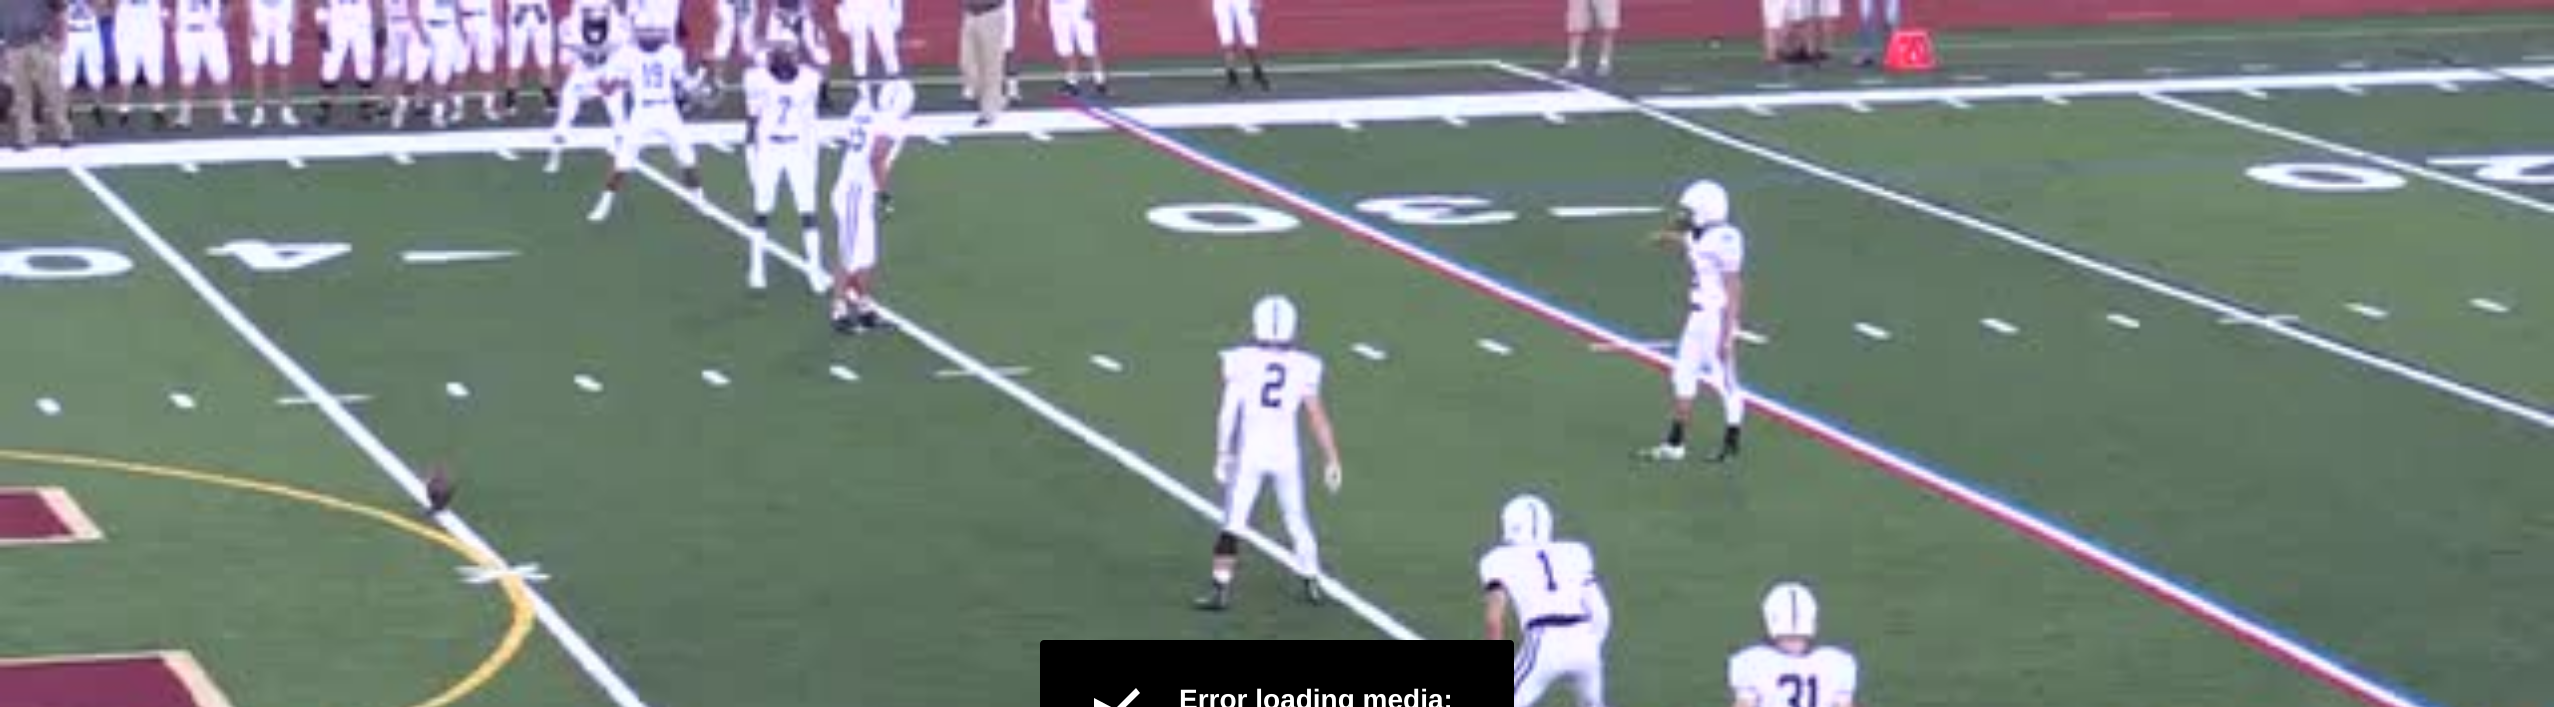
#include <cairo/cairo.h>
#include <math.h>
#include <stddef.h>


static void rounded_rect(cairo_t *cr, double x, double y, double w, double h, double r) {
  cairo_new_sub_path(cr);
  cairo_arc(cr, x + w - r, y + h - r, r, 0, M_PI / 2);
  cairo_arc(cr, x + r, y + h - r, r, M_PI / 2, M_PI);
  cairo_arc(cr, x + r, y + r, r, M_PI, 1.5 * M_PI);
  cairo_arc(cr, x + w - r, y + r, r, 1.5 * M_PI, 2 * M_PI);
  cairo_close_path(cr);
}

static void draw_image(cairo_t *cr, const char *path, double x, double y, double w, double h) {
  cairo_surface_t *image = cairo_image_surface_create_from_png(path);
  cairo_save(cr);
  cairo_set_source_surface(cr, image, x, y);
  cairo_rectangle(cr, x, y, w, h);
  cairo_fill(cr);
  cairo_restore(cr);
  cairo_surface_destroy(image);
}

static void draw(cairo_t *cr) {
  cairo_set_source_rgb(cr, 1, 1, 1);
  cairo_paint(cr);
  draw_image(cr, "images/1.png", 0, 0, 2554, 707);
  cairo_set_source_rgb(cr, 0, 0, 0);
  rounded_rect(cr, 1040, 640, 474, 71, 4);
  cairo_fill(cr);
  cairo_set_source_rgb(cr, 1, 1, 1);
  cairo_new_path(cr);
  cairo_move_to(cr, 1138, 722);
  cairo_line_to(cr, 1097, 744);
  cairo_line_to(cr, 1126, 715);
  cairo_curve_to(cr, 1137, 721, 1140, 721, 1138, 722);
  cairo_close_path(cr);
  cairo_move_to(cr, 1136, 688);
  cairo_line_to(cr, 1115, 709);
  cairo_line_to(cr, 1094, 698);
  cairo_line_to(cr, 1094, 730);
  cairo_line_to(cr, 1080, 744);
  cairo_line_to(cr, 1084, 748);
  cairo_line_to(cr, 1140, 693);
  cairo_close_path(cr);
  cairo_fill(cr);
  cairo_select_font_face(cr, "Liberation Sans", CAIRO_FONT_SLANT_NORMAL, CAIRO_FONT_WEIGHT_BOLD);
  cairo_set_font_size(cr, 28);
  cairo_move_to(cr, 1179, 709);
  cairo_show_text(cr, "Error loading media:");
}

int main(void) {
  cairo_surface_t *surface = cairo_image_surface_create(CAIRO_FORMAT_RGB24, 2554, 707);
  cairo_t *cr = cairo_create(surface);
  cairo_font_options_t *options = cairo_font_options_create();
  cairo_font_options_set_hint_metrics(options, CAIRO_HINT_METRICS_OFF);
  cairo_font_options_set_hint_style(options, CAIRO_HINT_STYLE_NONE);
  cairo_set_font_options(cr, options);
  cairo_set_miter_limit(cr, 4);
  draw(cr);
  cairo_surface_write_to_png(surface, "out.png");
  cairo_font_options_destroy(options);
  cairo_destroy(cr);
  cairo_surface_destroy(surface);
  return 0;
}
